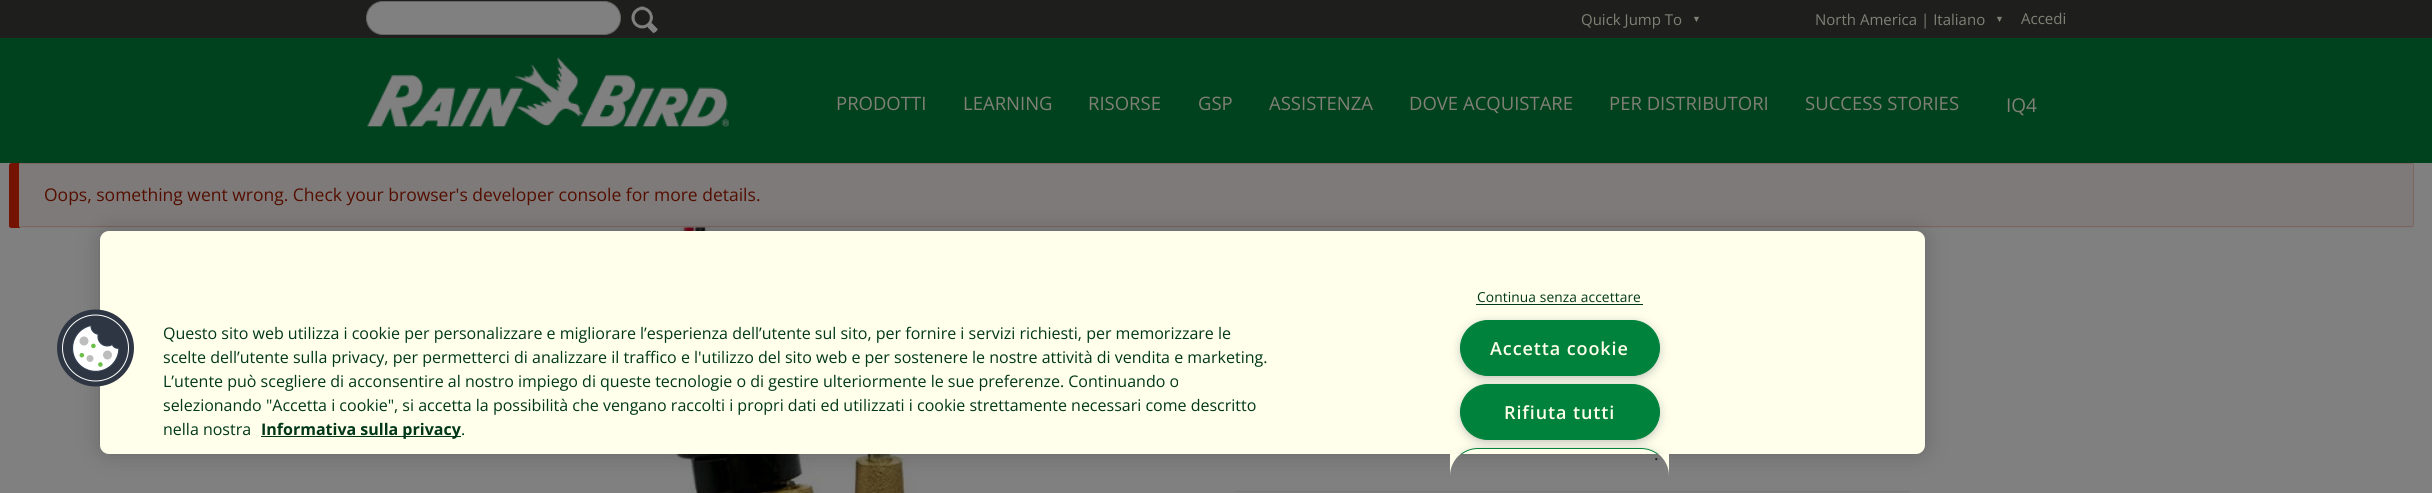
#include <cairo/cairo.h>
#include <math.h>
#include <stddef.h>


static void draw_spaced(cairo_t *cr, double x, double y, const char *s, double letter, double word) {
  cairo_move_to(cr, x, y);
  while (*s) {
    char ch[5] = {0};
    int n = 0;
    do ch[n++] = *s++; while ((*s & 0xC0) == 0x80);
    cairo_show_text(cr, ch);
    cairo_rel_move_to(cr, letter + word * (*ch == ' '), 0);
  }
}

static void rounded_rect(cairo_t *cr, double x, double y, double w, double h, double r) {
  cairo_new_sub_path(cr);
  cairo_arc(cr, x + w - r, y + h - r, r, 0, M_PI / 2);
  cairo_arc(cr, x + r, y + h - r, r, M_PI / 2, M_PI);
  cairo_arc(cr, x + r, y + r, r, M_PI, 1.5 * M_PI);
  cairo_arc(cr, x + w - r, y + r, r, 1.5 * M_PI, 2 * M_PI);
  cairo_close_path(cr);
}

static void draw_shadow(cairo_t *cr, double x, double y, double w, double h, double r, double blur, double alpha) {
  cairo_push_group_with_content(cr, CAIRO_CONTENT_ALPHA);
  cairo_set_operator(cr, CAIRO_OPERATOR_SOURCE);
  for (int i = 15; i >= -15 && fmin(w, h) + blur * i / 3 > 0; i -= 2) {
    double e = blur * i / 6;
    cairo_set_source_rgba(cr, 0, 0, 0, alpha * erfc((i - 1) / 8.5) / 2);
    rounded_rect(cr, x - e, y - e, w + 2 * e, h + 2 * e, fmax(0, fmin(r + e + blur * .6, fmin(w, h) / 2 + e)));
    cairo_fill(cr);
  }
  cairo_pattern_t *soft = cairo_pop_group(cr);
  cairo_mask(cr, soft);
  cairo_pattern_destroy(soft);
}

static void draw_image(cairo_t *cr, const char *path, double x, double y, double w, double h) {
  cairo_surface_t *image = cairo_image_surface_create_from_png(path);
  cairo_save(cr);
  cairo_set_source_surface(cr, image, x, y);
  cairo_rectangle(cr, x, y, w, h);
  cairo_fill(cr);
  cairo_restore(cr);
  cairo_surface_destroy(image);
}

static void draw(cairo_t *cr) {
  cairo_set_source_rgb(cr, 128 / 255.0, 128 / 255.0, 128 / 255.0);
  cairo_paint(cr);
  cairo_set_source_rgb(cr, 0, 65 / 255.0, 30 / 255.0);
  cairo_rectangle(cr, 0, 38, 2432, 125);
  cairo_fill(cr);
  cairo_set_source_rgb(cr, 30 / 255.0, 30 / 255.0, 28 / 255.0);
  cairo_rectangle(cr, 0, 0, 2432, 38);
  cairo_fill(cr);
  cairo_set_source_rgb(cr, 128 / 255.0, 128 / 255.0, 128 / 255.0);
  rounded_rect(cr, 366.5, 1.5, 254, 33, 16.5);
  cairo_fill_preserve(cr);
  cairo_set_source_rgb(cr, 100 / 255.0, 100 / 255.0, 100 / 255.0);
  cairo_set_line_width(cr, 1);
  cairo_stroke(cr);
  draw_image(cr, "images/1.png", 631, 6, 27, 28);
  draw_image(cr, "images/2.png", 367, 57, 362, 70);
  cairo_set_source_rgb(cr, 115 / 255.0, 19 / 255.0, 0);
  cairo_new_path(cr);
  cairo_move_to(cr, 12, 163);
  cairo_curve_to(cr, 10, 163, 9, 164, 9, 166);
  cairo_line_to(cr, 9, 226);
  cairo_curve_to(cr, 9, 227, 10, 228, 12, 228);
  cairo_line_to(cr, 2402, 228);
  cairo_line_to(cr, 2403, 228);
  cairo_line_to(cr, 21, 228);
  cairo_curve_to(cr, 20, 228, 19, 226, 19, 225);
  cairo_line_to(cr, 19, 165);
  cairo_curve_to(cr, 19, 164, 19, 163, 20, 163);
  cairo_close_path(cr);
  cairo_fill(cr);
  cairo_set_source_rgb(cr, 126 / 255.0, 122 / 255.0, 121 / 255.0);
  rounded_rect(cr, 19, 163, 2395, 65, 2.5);
  cairo_fill(cr);
  cairo_set_source_rgb(cr, 125 / 255.0, 101 / 255.0, 96 / 255.0);
  cairo_rectangle(cr, 20, 163, 2393, 1);
  cairo_fill(cr);
  cairo_rectangle(cr, 2413, 164, 1, 62);
  cairo_fill(cr);
  cairo_rectangle(cr, 20, 226, 2393, 1);
  cairo_fill(cr);
  draw_image(cr, "images/3.png", 600, 227, 521, 266);
  cairo_set_source_rgb(cr, 119 / 255.0, 119 / 255.0, 119 / 255.0);
  cairo_rectangle(cr, 1235, 491, 675, 1);
  cairo_fill(cr);
  cairo_set_source_rgb(cr, 0, 0, 0);
  draw_shadow(cr, 100, 231, 1825, 223, 9, 11, 0.2);
  cairo_set_source_rgb(cr, 1, 1, 235 / 255.0);
  rounded_rect(cr, 100, 231, 1825, 223, 9);
  cairo_fill(cr);
  draw_image(cr, "images/4.png", 57, 309, 77, 78);
  cairo_set_source_rgb(cr, 0, 55 / 255.0, 25 / 255.0);
  cairo_rectangle(cr, 261, 436, 200, 1);
  cairo_fill(cr);
  cairo_rectangle(cr, 1476, 304, 167, 1);
  cairo_fill(cr);
  cairo_set_source_rgb(cr, 153 / 255.0, 153 / 255.0, 153 / 255.0);
  draw_shadow(cr, 1464, 326, 192, 49, 24.5, 6, 1);
  cairo_set_source_rgb(cr, 0, 130 / 255.0, 60 / 255.0);
  rounded_rect(cr, 1460.5, 320.5, 199, 55, 27.5);
  cairo_fill_preserve(cr);
  cairo_stroke(cr);
  cairo_set_source_rgb(cr, 153 / 255.0, 153 / 255.0, 153 / 255.0);
  draw_shadow(cr, 1464, 390, 192, 49, 24.5, 6, 1);
  cairo_set_source_rgb(cr, 0, 130 / 255.0, 60 / 255.0);
  rounded_rect(cr, 1460.5, 384.5, 199, 55, 27.5);
  cairo_fill_preserve(cr);
  cairo_stroke(cr);
  cairo_save(cr);
  cairo_rectangle(cr, 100, 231, 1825, 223);
  cairo_clip(cr);
  cairo_set_source_rgb(cr, 153 / 255.0, 153 / 255.0, 153 / 255.0);
  draw_shadow(cr, 1454, 454, 211, 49, 24.5, 6, 1);
  cairo_restore(cr);
  cairo_set_source_rgb(cr, 1, 1, 235 / 255.0);
  cairo_new_path(cr);
  cairo_move_to(cr, 1478, 448);
  cairo_line_to(cr, 1641, 448);
  cairo_curve_to(cr, 1656.5, 448, 1669, 460.5, 1669, 476);
  cairo_line_to(cr, 1669, 454);
  cairo_line_to(cr, 1450, 454);
  cairo_line_to(cr, 1450, 476);
  cairo_curve_to(cr, 1450, 460.5, 1462.5, 448, 1478, 448);
  cairo_close_path(cr);
  cairo_fill(cr);
  cairo_save(cr);
  cairo_rectangle(cr, 100, 231, 1825, 223);
  cairo_clip(cr);
  rounded_rect(cr, 1450.5, 448.5, 218, 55, 27.5);
  cairo_set_source_rgb(cr, 0, 130 / 255.0, 60 / 255.0);
  cairo_stroke(cr);
  cairo_restore(cr);
  cairo_select_font_face(cr, "Open Sans", CAIRO_FONT_SLANT_NORMAL, CAIRO_FONT_WEIGHT_NORMAL);
  cairo_set_font_size(cr, 15);
  cairo_set_source_rgb(cr, 128 / 255.0, 128 / 255.0, 118 / 255.0);
  cairo_move_to(cr, 1581, 25);
  cairo_show_text(cr, "Quick Jump To");
  cairo_select_font_face(cr, "Liberation Serif", CAIRO_FONT_SLANT_NORMAL, CAIRO_FONT_WEIGHT_NORMAL);
  cairo_set_font_size(cr, 9);
  cairo_move_to(cr, 1692, 22);
  cairo_show_text(cr, "▼");
  cairo_select_font_face(cr, "Open Sans", CAIRO_FONT_SLANT_NORMAL, CAIRO_FONT_WEIGHT_NORMAL);
  cairo_set_font_size(cr, 15);
  cairo_move_to(cr, 1815, 25);
  cairo_show_text(cr, "North America | Italiano");
  cairo_select_font_face(cr, "Liberation Serif", CAIRO_FONT_SLANT_NORMAL, CAIRO_FONT_WEIGHT_NORMAL);
  cairo_set_font_size(cr, 9);
  cairo_move_to(cr, 1995, 22);
  cairo_show_text(cr, "▼");
  cairo_select_font_face(cr, "Open Sans", CAIRO_FONT_SLANT_NORMAL, CAIRO_FONT_WEIGHT_NORMAL);
  cairo_set_font_size(cr, 15);
  cairo_move_to(cr, 2021, 24);
  cairo_show_text(cr, "Accedi");
  cairo_set_font_size(cr, 18.5);
  cairo_move_to(cr, 836, 110);
  cairo_show_text(cr, "PRODOTTI");
  cairo_move_to(cr, 963, 110);
  cairo_show_text(cr, "LEARNING");
  cairo_move_to(cr, 1088, 110);
  cairo_show_text(cr, "RISORSE");
  cairo_move_to(cr, 1198, 110);
  cairo_show_text(cr, "GSP");
  cairo_move_to(cr, 1269, 110);
  cairo_show_text(cr, "ASSISTENZA");
  cairo_move_to(cr, 1409, 110);
  cairo_show_text(cr, "DOVE ACQUISTARE");
  cairo_move_to(cr, 1609, 110);
  cairo_show_text(cr, "PER DISTRIBUTORI");
  cairo_move_to(cr, 1805, 110);
  cairo_show_text(cr, "SUCCESS STORIES");
  cairo_set_font_size(cr, 19);
  cairo_move_to(cr, 2006, 112);
  cairo_show_text(cr, "IQ4");
  cairo_set_font_size(cr, 17.5);
  cairo_set_source_rgb(cr, 83 / 255.0, 14 / 255.0, 0);
  cairo_move_to(cr, 44, 201);
  cairo_show_text(cr, "Oops, something went wrong. Check your browser's developer console for more details.");
  cairo_set_source_rgb(cr, 26 / 255.0, 26 / 255.0, 26 / 255.0);
  cairo_move_to(cr, 1654, 460);
  cairo_show_text(cr, ".");
  cairo_set_font_size(cr, 16);
  cairo_set_source_rgb(cr, 0, 55 / 255.0, 25 / 255.0);
  cairo_move_to(cr, 163, 339);
  cairo_show_text(cr, "Questo sito web utilizza i cookie per personalizzare e migliorare l’esperienza dell’utente sul sito, per fornire i servizi richiesti, per memorizzare le");
  cairo_move_to(cr, 163, 363);
  cairo_show_text(cr, "scelte dell’utente sulla privacy, per permetterci di analizzare il traffico e l'utilizzo del sito web e per sostenere le nostre attività di vendita e marketing.");
  cairo_move_to(cr, 163, 387);
  cairo_show_text(cr, "L’utente può scegliere di acconsentire al nostro impiego di queste tecnologie o di gestire ulteriormente le sue preferenze. Continuando o");
  cairo_move_to(cr, 163, 411);
  cairo_show_text(cr, "selezionando \"Accetta i cookie\", si accetta la possibilità che vengano raccolti i propri dati ed utilizzati i cookie strettamente necessari come descritto");
  cairo_move_to(cr, 163, 435);
  cairo_show_text(cr, "nella nostra");
  cairo_select_font_face(cr, "Open Sans", CAIRO_FONT_SLANT_NORMAL, CAIRO_FONT_WEIGHT_BOLD);
  cairo_move_to(cr, 261, 435);
  cairo_show_text(cr, "Informativa sulla privacy");
  cairo_select_font_face(cr, "Open Sans", CAIRO_FONT_SLANT_NORMAL, CAIRO_FONT_WEIGHT_NORMAL);
  cairo_move_to(cr, 461, 435);
  cairo_show_text(cr, ".");
  cairo_set_font_size(cr, 13.75);
  draw_spaced(cr, 1477, 302, "Continua senza accettare", 0.1, 0);
  cairo_select_font_face(cr, "Open Sans SemiBold", CAIRO_FONT_SLANT_NORMAL, CAIRO_FONT_WEIGHT_NORMAL);
  cairo_set_font_size(cr, 18);
  cairo_set_source_rgb(cr, 1, 1, 235 / 255.0);
  draw_spaced(cr, 1490, 355, "Accetta cookie", 0.9, 0);
  draw_spaced(cr, 1504, 419, "Rifiuta tutti", 0.9, 0);
}

int main(void) {
  cairo_surface_t *surface = cairo_image_surface_create(CAIRO_FORMAT_RGB24, 2432, 493);
  cairo_t *cr = cairo_create(surface);
  cairo_font_options_t *options = cairo_font_options_create();
  cairo_font_options_set_hint_metrics(options, CAIRO_HINT_METRICS_OFF);
  cairo_font_options_set_hint_style(options, CAIRO_HINT_STYLE_NONE);
  cairo_set_font_options(cr, options);
  cairo_set_miter_limit(cr, 4);
  draw(cr);
  cairo_surface_write_to_png(surface, "out.png");
  cairo_font_options_destroy(options);
  cairo_destroy(cr);
  cairo_surface_destroy(surface);
  return 0;
}
